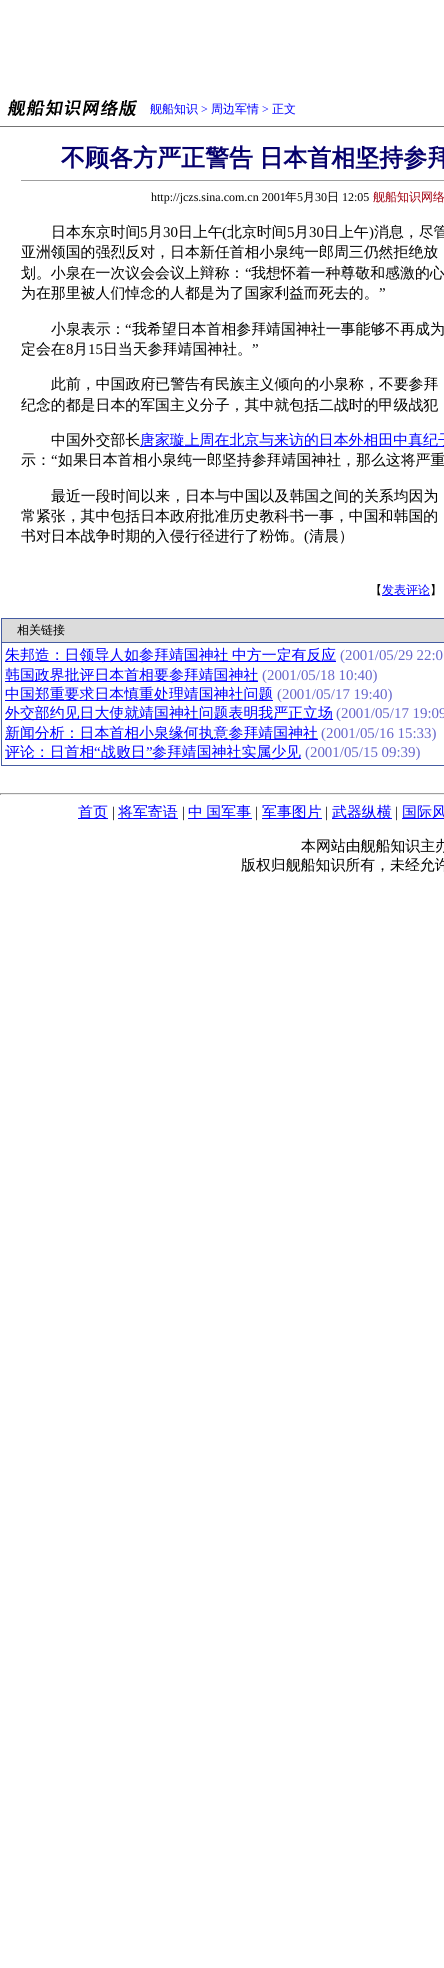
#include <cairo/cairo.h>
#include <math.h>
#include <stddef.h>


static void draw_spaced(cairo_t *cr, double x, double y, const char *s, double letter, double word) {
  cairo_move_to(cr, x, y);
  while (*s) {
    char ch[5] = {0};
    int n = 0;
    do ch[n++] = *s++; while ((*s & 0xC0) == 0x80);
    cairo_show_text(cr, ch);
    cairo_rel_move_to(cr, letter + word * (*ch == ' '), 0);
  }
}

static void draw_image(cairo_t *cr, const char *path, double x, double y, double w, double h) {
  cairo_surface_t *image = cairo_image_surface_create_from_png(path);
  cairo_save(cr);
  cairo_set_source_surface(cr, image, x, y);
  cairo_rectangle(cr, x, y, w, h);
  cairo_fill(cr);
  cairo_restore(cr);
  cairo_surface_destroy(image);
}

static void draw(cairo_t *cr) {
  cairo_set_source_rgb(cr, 1, 1, 1);
  cairo_paint(cr);
  draw_image(cr, "images/1.png", 7, 99, 130, 18);
  cairo_set_source_rgb(cr, 116 / 255.0, 116 / 255.0, 116 / 255.0);
  cairo_rectangle(cr, 0, 126, 444, 1);
  cairo_fill(cr);
  cairo_set_source_rgb(cr, 159 / 255.0, 159 / 255.0, 159 / 255.0);
  cairo_rectangle(cr, 21, 180, 423, 1);
  cairo_fill(cr);
  cairo_set_source_rgb(cr, 0, 0, 1);
  cairo_rectangle(cr, 140, 446, 304, 1);
  cairo_fill(cr);
  cairo_rectangle(cr, 382, 595, 48, 1);
  cairo_fill(cr);
  cairo_set_source_rgb(cr, 69 / 255.0, 92 / 255.0, 162 / 255.0);
  cairo_rectangle(cr, 1, 618, 443, 148);
  cairo_fill(cr);
  cairo_set_source_rgb(cr, 220 / 255.0, 220 / 255.0, 220 / 255.0);
  cairo_rectangle(cr, 2, 619, 442, 23);
  cairo_fill(cr);
  cairo_set_source_rgb(cr, 1, 1, 1);
  cairo_rectangle(cr, 2, 643, 442, 122);
  cairo_fill(cr);
  cairo_set_source_rgb(cr, 0, 0, 1);
  cairo_rectangle(cr, 5, 661, 331, 1);
  cairo_fill(cr);
  cairo_rectangle(cr, 5, 681, 253, 1);
  cairo_fill(cr);
  cairo_rectangle(cr, 5, 700, 268, 1);
  cairo_fill(cr);
  cairo_rectangle(cr, 5, 719, 328, 1);
  cairo_fill(cr);
  cairo_rectangle(cr, 5, 739, 313, 1);
  cairo_fill(cr);
  cairo_rectangle(cr, 5, 758, 296, 1);
  cairo_fill(cr);
  cairo_set_source_rgb(cr, 159 / 255.0, 159 / 255.0, 159 / 255.0);
  cairo_rectangle(cr, 0, 793, 444, 1);
  cairo_fill(cr);
  cairo_set_source_rgb(cr, 238 / 255.0, 238 / 255.0, 238 / 255.0);
  cairo_rectangle(cr, 0, 794, 444, 1);
  cairo_fill(cr);
  cairo_set_source_rgb(cr, 159 / 255.0, 159 / 255.0, 159 / 255.0);
  cairo_rectangle(cr, 0, 793, 1, 2);
  cairo_fill(cr);
  cairo_set_source_rgb(cr, 0, 0, 1);
  cairo_rectangle(cr, 78, 818, 30, 1);
  cairo_fill(cr);
  cairo_rectangle(cr, 118, 818, 60, 1);
  cairo_fill(cr);
  cairo_rectangle(cr, 188, 818, 64, 1);
  cairo_fill(cr);
  cairo_rectangle(cr, 262, 818, 60, 1);
  cairo_fill(cr);
  cairo_rectangle(cr, 332, 818, 60, 1);
  cairo_fill(cr);
  cairo_rectangle(cr, 402, 818, 42, 1);
  cairo_fill(cr);
  cairo_select_font_face(cr, "WenQuanYi Zen Hei Medium", CAIRO_FONT_SLANT_NORMAL, CAIRO_FONT_WEIGHT_NORMAL);
  cairo_set_font_size(cr, 12);
  cairo_move_to(cr, 150, 113);
  cairo_show_text(cr, "舰船知识");
  cairo_select_font_face(cr, "Liberation Serif", CAIRO_FONT_SLANT_NORMAL, CAIRO_FONT_WEIGHT_NORMAL);
  cairo_move_to(cr, 201, 113);
  cairo_show_text(cr, ">");
  cairo_select_font_face(cr, "WenQuanYi Zen Hei Medium", CAIRO_FONT_SLANT_NORMAL, CAIRO_FONT_WEIGHT_NORMAL);
  cairo_move_to(cr, 211, 113);
  cairo_show_text(cr, "周边军情");
  cairo_select_font_face(cr, "Liberation Serif", CAIRO_FONT_SLANT_NORMAL, CAIRO_FONT_WEIGHT_NORMAL);
  cairo_move_to(cr, 262, 113);
  cairo_show_text(cr, ">");
  cairo_select_font_face(cr, "WenQuanYi Zen Hei Medium", CAIRO_FONT_SLANT_NORMAL, CAIRO_FONT_WEIGHT_NORMAL);
  cairo_move_to(cr, 272, 113);
  cairo_show_text(cr, "正文");
  cairo_select_font_face(cr, "WenQuanYi Zen Hei", CAIRO_FONT_SLANT_NORMAL, CAIRO_FONT_WEIGHT_BOLD);
  cairo_set_font_size(cr, 24);
  cairo_set_source_rgb(cr, 5 / 255.0, 0, 108 / 255.0);
  draw_spaced(cr, 61, 166, "不顾各方严正警告 日本首相坚持参拜", 0, -1);
  cairo_select_font_face(cr, "Liberation Serif", CAIRO_FONT_SLANT_NORMAL, CAIRO_FONT_WEIGHT_NORMAL);
  cairo_set_font_size(cr, 12);
  cairo_set_source_rgb(cr, 0, 0, 0);
  cairo_move_to(cr, 151, 201);
  cairo_show_text(cr, "http://jczs.sina.com.cn 2001");
  cairo_select_font_face(cr, "WenQuanYi Zen Hei Medium", CAIRO_FONT_SLANT_NORMAL, CAIRO_FONT_WEIGHT_NORMAL);
  cairo_move_to(cr, 285, 201);
  cairo_show_text(cr, "年");
  cairo_select_font_face(cr, "Liberation Serif", CAIRO_FONT_SLANT_NORMAL, CAIRO_FONT_WEIGHT_NORMAL);
  cairo_move_to(cr, 297, 201);
  cairo_show_text(cr, "5");
  cairo_select_font_face(cr, "WenQuanYi Zen Hei Medium", CAIRO_FONT_SLANT_NORMAL, CAIRO_FONT_WEIGHT_NORMAL);
  cairo_move_to(cr, 303, 201);
  cairo_show_text(cr, "月");
  cairo_select_font_face(cr, "Liberation Serif", CAIRO_FONT_SLANT_NORMAL, CAIRO_FONT_WEIGHT_NORMAL);
  cairo_move_to(cr, 315, 201);
  cairo_show_text(cr, "30");
  cairo_select_font_face(cr, "WenQuanYi Zen Hei Medium", CAIRO_FONT_SLANT_NORMAL, CAIRO_FONT_WEIGHT_NORMAL);
  cairo_move_to(cr, 327, 201);
  cairo_show_text(cr, "日");
  cairo_select_font_face(cr, "Liberation Serif", CAIRO_FONT_SLANT_NORMAL, CAIRO_FONT_WEIGHT_NORMAL);
  cairo_move_to(cr, 342, 201);
  cairo_show_text(cr, "12:05");
  cairo_select_font_face(cr, "WenQuanYi Zen Hei Medium", CAIRO_FONT_SLANT_NORMAL, CAIRO_FONT_WEIGHT_NORMAL);
  cairo_set_source_rgb(cr, 162 / 255.0, 0, 16 / 255.0);
  cairo_move_to(cr, 373, 201);
  cairo_show_text(cr, "舰船知识网络");
  cairo_set_font_size(cr, 14.9);
  cairo_set_source_rgb(cr, 0, 0, 0);
  cairo_move_to(cr, 51, 237);
  cairo_show_text(cr, "日本东京时间");
  cairo_select_font_face(cr, "Liberation Serif", CAIRO_FONT_SLANT_NORMAL, CAIRO_FONT_WEIGHT_NORMAL);
  cairo_move_to(cr, 140, 237);
  cairo_show_text(cr, "5");
  cairo_select_font_face(cr, "WenQuanYi Zen Hei Medium", CAIRO_FONT_SLANT_NORMAL, CAIRO_FONT_WEIGHT_NORMAL);
  cairo_move_to(cr, 148, 237);
  cairo_show_text(cr, "月");
  cairo_select_font_face(cr, "Liberation Serif", CAIRO_FONT_SLANT_NORMAL, CAIRO_FONT_WEIGHT_NORMAL);
  cairo_move_to(cr, 163, 237);
  cairo_show_text(cr, "30");
  cairo_select_font_face(cr, "WenQuanYi Zen Hei Medium", CAIRO_FONT_SLANT_NORMAL, CAIRO_FONT_WEIGHT_NORMAL);
  cairo_move_to(cr, 178, 237);
  cairo_show_text(cr, "日上午");
  cairo_select_font_face(cr, "Liberation Serif", CAIRO_FONT_SLANT_NORMAL, CAIRO_FONT_WEIGHT_NORMAL);
  cairo_move_to(cr, 222, 237);
  cairo_show_text(cr, "(");
  cairo_select_font_face(cr, "WenQuanYi Zen Hei Medium", CAIRO_FONT_SLANT_NORMAL, CAIRO_FONT_WEIGHT_NORMAL);
  cairo_move_to(cr, 227, 237);
  cairo_show_text(cr, "北京时间");
  cairo_select_font_face(cr, "Liberation Serif", CAIRO_FONT_SLANT_NORMAL, CAIRO_FONT_WEIGHT_NORMAL);
  cairo_move_to(cr, 287, 237);
  cairo_show_text(cr, "5");
  cairo_select_font_face(cr, "WenQuanYi Zen Hei Medium", CAIRO_FONT_SLANT_NORMAL, CAIRO_FONT_WEIGHT_NORMAL);
  cairo_move_to(cr, 294, 237);
  cairo_show_text(cr, "月");
  cairo_select_font_face(cr, "Liberation Serif", CAIRO_FONT_SLANT_NORMAL, CAIRO_FONT_WEIGHT_NORMAL);
  cairo_move_to(cr, 309, 237);
  cairo_show_text(cr, "30");
  cairo_select_font_face(cr, "WenQuanYi Zen Hei Medium", CAIRO_FONT_SLANT_NORMAL, CAIRO_FONT_WEIGHT_NORMAL);
  cairo_move_to(cr, 324, 237);
  cairo_show_text(cr, "日上午");
  cairo_select_font_face(cr, "Liberation Serif", CAIRO_FONT_SLANT_NORMAL, CAIRO_FONT_WEIGHT_NORMAL);
  cairo_move_to(cr, 369, 237);
  cairo_show_text(cr, ")");
  cairo_select_font_face(cr, "WenQuanYi Zen Hei Medium", CAIRO_FONT_SLANT_NORMAL, CAIRO_FONT_WEIGHT_NORMAL);
  cairo_move_to(cr, 374, 237);
  cairo_show_text(cr, "消息，尽管");
  cairo_move_to(cr, 21, 257);
  cairo_show_text(cr, "亚洲领国的强烈反对，日本新任首相小泉纯一郎周三仍然拒绝放");
  cairo_move_to(cr, 21, 278);
  cairo_show_text(cr, "划。小泉在一次议会会议上辩称：");
  cairo_select_font_face(cr, "Liberation Serif", CAIRO_FONT_SLANT_NORMAL, CAIRO_FONT_WEIGHT_NORMAL);
  cairo_move_to(cr, 245, 278);
  cairo_show_text(cr, "“");
  cairo_select_font_face(cr, "WenQuanYi Zen Hei Medium", CAIRO_FONT_SLANT_NORMAL, CAIRO_FONT_WEIGHT_NORMAL);
  cairo_move_to(cr, 251, 278);
  cairo_show_text(cr, "我想怀着一种尊敬和感激的心");
  cairo_move_to(cr, 21, 298);
  cairo_show_text(cr, "为在那里被人们悼念的人都是为了国家利益而死去的。");
  cairo_select_font_face(cr, "Liberation Serif", CAIRO_FONT_SLANT_NORMAL, CAIRO_FONT_WEIGHT_NORMAL);
  cairo_move_to(cr, 379, 298);
  cairo_show_text(cr, "”");
  cairo_select_font_face(cr, "WenQuanYi Zen Hei Medium", CAIRO_FONT_SLANT_NORMAL, CAIRO_FONT_WEIGHT_NORMAL);
  cairo_move_to(cr, 51, 334);
  cairo_show_text(cr, "小泉表示：");
  cairo_select_font_face(cr, "Liberation Serif", CAIRO_FONT_SLANT_NORMAL, CAIRO_FONT_WEIGHT_NORMAL);
  cairo_move_to(cr, 125, 334);
  cairo_show_text(cr, "“");
  cairo_select_font_face(cr, "WenQuanYi Zen Hei Medium", CAIRO_FONT_SLANT_NORMAL, CAIRO_FONT_WEIGHT_NORMAL);
  cairo_move_to(cr, 132, 334);
  cairo_show_text(cr, "我希望日本首相参拜靖国神社一事能够不再成为");
  cairo_move_to(cr, 21, 354);
  cairo_show_text(cr, "定会在");
  cairo_select_font_face(cr, "Liberation Serif", CAIRO_FONT_SLANT_NORMAL, CAIRO_FONT_WEIGHT_NORMAL);
  cairo_move_to(cr, 66, 354);
  cairo_show_text(cr, "8");
  cairo_select_font_face(cr, "WenQuanYi Zen Hei Medium", CAIRO_FONT_SLANT_NORMAL, CAIRO_FONT_WEIGHT_NORMAL);
  cairo_move_to(cr, 73, 354);
  cairo_show_text(cr, "月");
  cairo_select_font_face(cr, "Liberation Serif", CAIRO_FONT_SLANT_NORMAL, CAIRO_FONT_WEIGHT_NORMAL);
  cairo_move_to(cr, 88, 354);
  cairo_show_text(cr, "15");
  cairo_select_font_face(cr, "WenQuanYi Zen Hei Medium", CAIRO_FONT_SLANT_NORMAL, CAIRO_FONT_WEIGHT_NORMAL);
  cairo_move_to(cr, 103, 354);
  cairo_show_text(cr, "日当天参拜靖国神社。");
  cairo_select_font_face(cr, "Liberation Serif", CAIRO_FONT_SLANT_NORMAL, CAIRO_FONT_WEIGHT_NORMAL);
  cairo_move_to(cr, 252, 354);
  cairo_show_text(cr, "”");
  cairo_select_font_face(cr, "WenQuanYi Zen Hei Medium", CAIRO_FONT_SLANT_NORMAL, CAIRO_FONT_WEIGHT_NORMAL);
  cairo_move_to(cr, 51, 389);
  cairo_show_text(cr, "此前，中国政府已警告有民族主义倾向的小泉称，不要参拜");
  cairo_move_to(cr, 21, 410);
  cairo_show_text(cr, "纪念的都是日本的军国主义分子，其中就包括二战时的甲级战犯");
  cairo_move_to(cr, 51, 445);
  cairo_show_text(cr, "中国外交部长");
  cairo_set_source_rgb(cr, 0, 0, 1);
  cairo_move_to(cr, 140, 445);
  cairo_show_text(cr, "唐家璇上周在北京与来访的日本外相田中真纪子");
  cairo_set_source_rgb(cr, 0, 0, 0);
  cairo_move_to(cr, 21, 465);
  cairo_show_text(cr, "示：");
  cairo_select_font_face(cr, "Liberation Serif", CAIRO_FONT_SLANT_NORMAL, CAIRO_FONT_WEIGHT_NORMAL);
  cairo_move_to(cr, 51, 465);
  cairo_show_text(cr, "“");
  cairo_select_font_face(cr, "WenQuanYi Zen Hei Medium", CAIRO_FONT_SLANT_NORMAL, CAIRO_FONT_WEIGHT_NORMAL);
  cairo_move_to(cr, 58, 465);
  cairo_show_text(cr, "如果日本首相小泉纯一郎坚持参拜靖国神社，那么这将严重");
  cairo_move_to(cr, 51, 501);
  cairo_show_text(cr, "最近一段时间以来，日本与中国以及韩国之间的关系均因为");
  cairo_move_to(cr, 21, 521);
  cairo_show_text(cr, "常紧张，其中包括日本政府批准历史教科书一事，中国和韩国的");
  cairo_move_to(cr, 21, 541);
  cairo_show_text(cr, "书对日本战争时期的入侵行径进行了粉饰。");
  cairo_select_font_face(cr, "Liberation Serif", CAIRO_FONT_SLANT_NORMAL, CAIRO_FONT_WEIGHT_NORMAL);
  cairo_move_to(cr, 304, 541);
  cairo_show_text(cr, "(");
  cairo_select_font_face(cr, "WenQuanYi Zen Hei Medium", CAIRO_FONT_SLANT_NORMAL, CAIRO_FONT_WEIGHT_NORMAL);
  cairo_move_to(cr, 309, 541);
  cairo_show_text(cr, "清晨）");
  cairo_set_font_size(cr, 12);
  cairo_move_to(cr, 370, 594);
  cairo_show_text(cr, "【");
  cairo_set_source_rgb(cr, 0, 0, 1);
  cairo_move_to(cr, 382, 594);
  cairo_show_text(cr, "发表评论");
  cairo_set_source_rgb(cr, 0, 0, 0);
  cairo_move_to(cr, 430, 594);
  cairo_show_text(cr, "】");
  cairo_move_to(cr, 17, 634);
  cairo_show_text(cr, "相关链接");
  cairo_set_font_size(cr, 14.9);
  cairo_set_source_rgb(cr, 0, 0, 1);
  draw_spaced(cr, 5, 660, "朱邦造：日领导人如参拜靖国神社 中方一定有反应", 0, -1);
  cairo_select_font_face(cr, "Liberation Serif", CAIRO_FONT_SLANT_NORMAL, CAIRO_FONT_WEIGHT_NORMAL);
  cairo_set_source_rgb(cr, 102 / 255.0, 102 / 255.0, 204 / 255.0);
  cairo_move_to(cr, 340, 660);
  cairo_show_text(cr, "(2001/05/29 22:0");
  cairo_select_font_face(cr, "WenQuanYi Zen Hei Medium", CAIRO_FONT_SLANT_NORMAL, CAIRO_FONT_WEIGHT_NORMAL);
  cairo_set_source_rgb(cr, 0, 0, 1);
  cairo_move_to(cr, 5, 680);
  cairo_show_text(cr, "韩国政界批评日本首相要参拜靖国神社");
  cairo_select_font_face(cr, "Liberation Serif", CAIRO_FONT_SLANT_NORMAL, CAIRO_FONT_WEIGHT_NORMAL);
  cairo_set_source_rgb(cr, 102 / 255.0, 102 / 255.0, 204 / 255.0);
  cairo_move_to(cr, 262, 680);
  cairo_show_text(cr, "(2001/05/18 10:40)");
  cairo_select_font_face(cr, "WenQuanYi Zen Hei Medium", CAIRO_FONT_SLANT_NORMAL, CAIRO_FONT_WEIGHT_NORMAL);
  cairo_set_source_rgb(cr, 0, 0, 1);
  cairo_move_to(cr, 5, 699);
  cairo_show_text(cr, "中国郑重要求日本慎重处理靖国神社问题");
  cairo_select_font_face(cr, "Liberation Serif", CAIRO_FONT_SLANT_NORMAL, CAIRO_FONT_WEIGHT_NORMAL);
  cairo_set_source_rgb(cr, 102 / 255.0, 102 / 255.0, 204 / 255.0);
  cairo_move_to(cr, 277, 699);
  cairo_show_text(cr, "(2001/05/17 19:40)");
  cairo_select_font_face(cr, "WenQuanYi Zen Hei Medium", CAIRO_FONT_SLANT_NORMAL, CAIRO_FONT_WEIGHT_NORMAL);
  cairo_set_source_rgb(cr, 0, 0, 1);
  cairo_move_to(cr, 5, 718);
  cairo_show_text(cr, "外交部约见日大使就靖国神社问题表明我严正立场");
  cairo_select_font_face(cr, "Liberation Serif", CAIRO_FONT_SLANT_NORMAL, CAIRO_FONT_WEIGHT_NORMAL);
  cairo_set_source_rgb(cr, 102 / 255.0, 102 / 255.0, 204 / 255.0);
  cairo_move_to(cr, 336, 718);
  cairo_show_text(cr, "(2001/05/17 19:09");
  cairo_select_font_face(cr, "WenQuanYi Zen Hei Medium", CAIRO_FONT_SLANT_NORMAL, CAIRO_FONT_WEIGHT_NORMAL);
  cairo_set_source_rgb(cr, 0, 0, 1);
  cairo_move_to(cr, 5, 738);
  cairo_show_text(cr, "新闻分析：日本首相小泉缘何执意参拜靖国神社");
  cairo_select_font_face(cr, "Liberation Serif", CAIRO_FONT_SLANT_NORMAL, CAIRO_FONT_WEIGHT_NORMAL);
  cairo_set_source_rgb(cr, 102 / 255.0, 102 / 255.0, 204 / 255.0);
  cairo_move_to(cr, 321, 738);
  cairo_show_text(cr, "(2001/05/16 15:33)");
  cairo_select_font_face(cr, "WenQuanYi Zen Hei Medium", CAIRO_FONT_SLANT_NORMAL, CAIRO_FONT_WEIGHT_NORMAL);
  cairo_set_source_rgb(cr, 0, 0, 1);
  cairo_move_to(cr, 5, 757);
  cairo_show_text(cr, "评论：日首相");
  cairo_select_font_face(cr, "Liberation Serif", CAIRO_FONT_SLANT_NORMAL, CAIRO_FONT_WEIGHT_NORMAL);
  cairo_move_to(cr, 94, 757);
  cairo_show_text(cr, "“");
  cairo_select_font_face(cr, "WenQuanYi Zen Hei Medium", CAIRO_FONT_SLANT_NORMAL, CAIRO_FONT_WEIGHT_NORMAL);
  cairo_move_to(cr, 101, 757);
  cairo_show_text(cr, "战败日");
  cairo_select_font_face(cr, "Liberation Serif", CAIRO_FONT_SLANT_NORMAL, CAIRO_FONT_WEIGHT_NORMAL);
  cairo_move_to(cr, 146, 757);
  cairo_show_text(cr, "”");
  cairo_select_font_face(cr, "WenQuanYi Zen Hei Medium", CAIRO_FONT_SLANT_NORMAL, CAIRO_FONT_WEIGHT_NORMAL);
  cairo_move_to(cr, 152, 757);
  cairo_show_text(cr, "参拜靖国神社实属少见");
  cairo_select_font_face(cr, "Liberation Serif", CAIRO_FONT_SLANT_NORMAL, CAIRO_FONT_WEIGHT_NORMAL);
  cairo_set_source_rgb(cr, 102 / 255.0, 102 / 255.0, 204 / 255.0);
  cairo_move_to(cr, 305, 757);
  cairo_show_text(cr, "(2001/05/15 09:39)");
  cairo_select_font_face(cr, "WenQuanYi Zen Hei Medium", CAIRO_FONT_SLANT_NORMAL, CAIRO_FONT_WEIGHT_NORMAL);
  cairo_set_source_rgb(cr, 0, 0, 1);
  cairo_move_to(cr, 78, 817);
  cairo_show_text(cr, "首页");
  cairo_select_font_face(cr, "Liberation Serif", CAIRO_FONT_SLANT_NORMAL, CAIRO_FONT_WEIGHT_NORMAL);
  cairo_set_source_rgb(cr, 0, 0, 0);
  cairo_move_to(cr, 112, 817);
  cairo_show_text(cr, "|");
  cairo_select_font_face(cr, "WenQuanYi Zen Hei Medium", CAIRO_FONT_SLANT_NORMAL, CAIRO_FONT_WEIGHT_NORMAL);
  cairo_set_source_rgb(cr, 0, 0, 1);
  cairo_move_to(cr, 118, 817);
  cairo_show_text(cr, "将军寄语");
  cairo_select_font_face(cr, "Liberation Serif", CAIRO_FONT_SLANT_NORMAL, CAIRO_FONT_WEIGHT_NORMAL);
  cairo_set_source_rgb(cr, 0, 0, 0);
  cairo_move_to(cr, 182, 817);
  cairo_show_text(cr, "|");
  cairo_select_font_face(cr, "WenQuanYi Zen Hei Medium", CAIRO_FONT_SLANT_NORMAL, CAIRO_FONT_WEIGHT_NORMAL);
  cairo_set_source_rgb(cr, 0, 0, 1);
  draw_spaced(cr, 188, 817, "中 国军事", 0, -1);
  cairo_select_font_face(cr, "Liberation Serif", CAIRO_FONT_SLANT_NORMAL, CAIRO_FONT_WEIGHT_NORMAL);
  cairo_set_source_rgb(cr, 0, 0, 0);
  cairo_move_to(cr, 255, 817);
  cairo_show_text(cr, "|");
  cairo_select_font_face(cr, "WenQuanYi Zen Hei Medium", CAIRO_FONT_SLANT_NORMAL, CAIRO_FONT_WEIGHT_NORMAL);
  cairo_set_source_rgb(cr, 0, 0, 1);
  cairo_move_to(cr, 262, 817);
  cairo_show_text(cr, "军事图片");
  cairo_select_font_face(cr, "Liberation Serif", CAIRO_FONT_SLANT_NORMAL, CAIRO_FONT_WEIGHT_NORMAL);
  cairo_set_source_rgb(cr, 0, 0, 0);
  cairo_move_to(cr, 325, 817);
  cairo_show_text(cr, "|");
  cairo_select_font_face(cr, "WenQuanYi Zen Hei Medium", CAIRO_FONT_SLANT_NORMAL, CAIRO_FONT_WEIGHT_NORMAL);
  cairo_set_source_rgb(cr, 0, 0, 1);
  cairo_move_to(cr, 332, 817);
  cairo_show_text(cr, "武器纵横");
  cairo_select_font_face(cr, "Liberation Serif", CAIRO_FONT_SLANT_NORMAL, CAIRO_FONT_WEIGHT_NORMAL);
  cairo_set_source_rgb(cr, 0, 0, 0);
  cairo_move_to(cr, 395, 817);
  cairo_show_text(cr, "|");
  cairo_select_font_face(cr, "WenQuanYi Zen Hei Medium", CAIRO_FONT_SLANT_NORMAL, CAIRO_FONT_WEIGHT_NORMAL);
  cairo_set_source_rgb(cr, 0, 0, 1);
  cairo_move_to(cr, 402, 817);
  cairo_show_text(cr, "国际风");
  cairo_set_source_rgb(cr, 0, 0, 0);
  cairo_move_to(cr, 301, 851);
  cairo_show_text(cr, "本网站由舰船知识主办");
  cairo_move_to(cr, 241, 870);
  cairo_show_text(cr, "版权归舰船知识所有，未经允许");
}

int main(void) {
  cairo_surface_t *surface = cairo_image_surface_create(CAIRO_FORMAT_RGB24, 444, 1968);
  cairo_t *cr = cairo_create(surface);
  cairo_font_options_t *options = cairo_font_options_create();
  cairo_font_options_set_hint_metrics(options, CAIRO_HINT_METRICS_OFF);
  cairo_font_options_set_hint_style(options, CAIRO_HINT_STYLE_NONE);
  cairo_set_font_options(cr, options);
  cairo_set_miter_limit(cr, 4);
  draw(cr);
  cairo_surface_write_to_png(surface, "out.png");
  cairo_font_options_destroy(options);
  cairo_destroy(cr);
  cairo_surface_destroy(surface);
  return 0;
}
